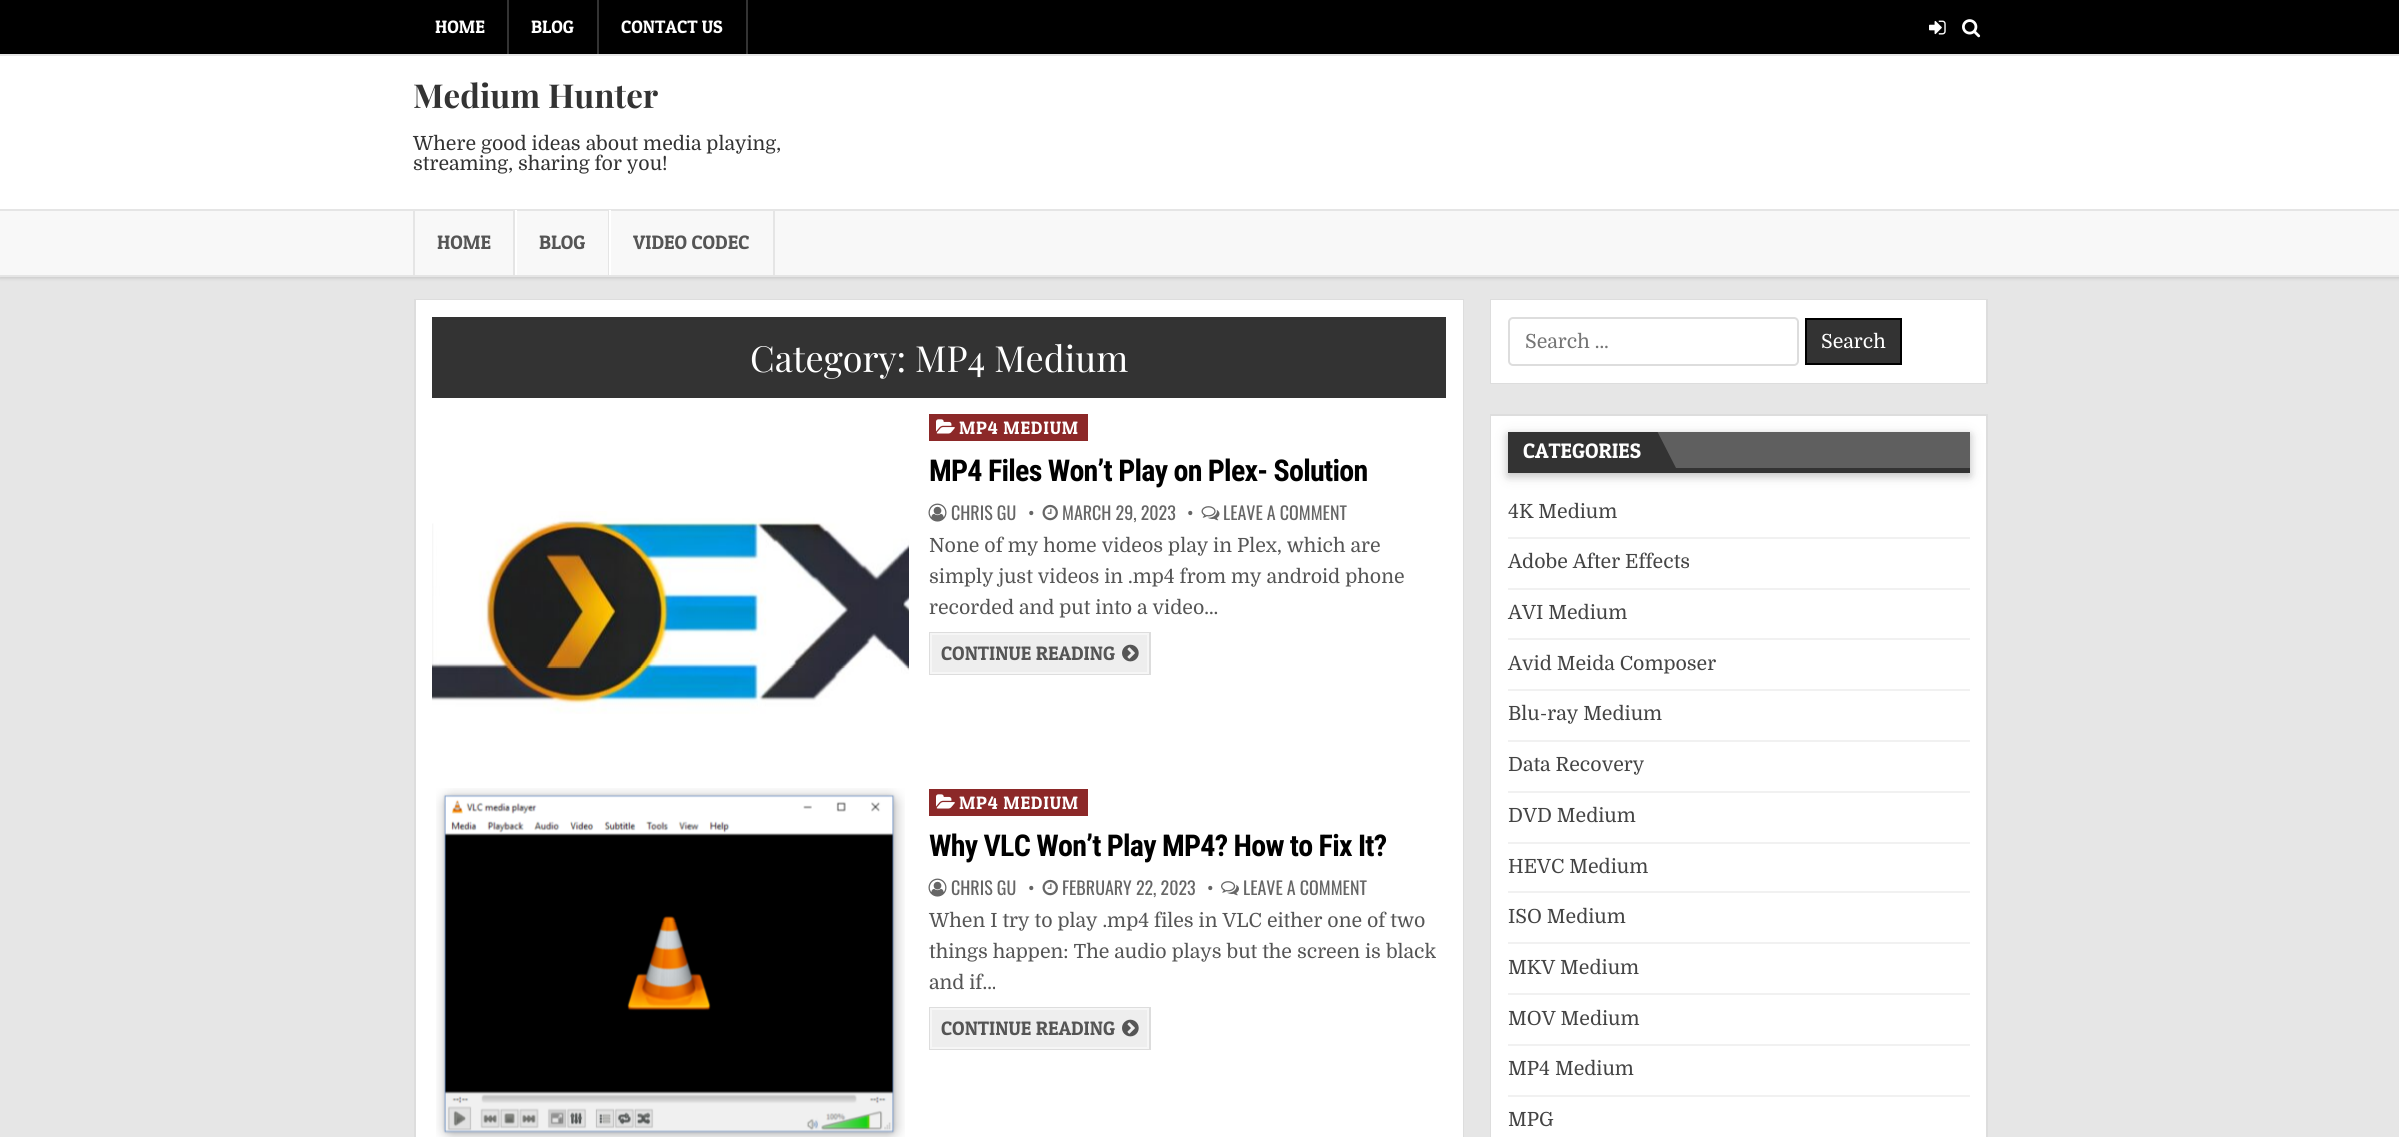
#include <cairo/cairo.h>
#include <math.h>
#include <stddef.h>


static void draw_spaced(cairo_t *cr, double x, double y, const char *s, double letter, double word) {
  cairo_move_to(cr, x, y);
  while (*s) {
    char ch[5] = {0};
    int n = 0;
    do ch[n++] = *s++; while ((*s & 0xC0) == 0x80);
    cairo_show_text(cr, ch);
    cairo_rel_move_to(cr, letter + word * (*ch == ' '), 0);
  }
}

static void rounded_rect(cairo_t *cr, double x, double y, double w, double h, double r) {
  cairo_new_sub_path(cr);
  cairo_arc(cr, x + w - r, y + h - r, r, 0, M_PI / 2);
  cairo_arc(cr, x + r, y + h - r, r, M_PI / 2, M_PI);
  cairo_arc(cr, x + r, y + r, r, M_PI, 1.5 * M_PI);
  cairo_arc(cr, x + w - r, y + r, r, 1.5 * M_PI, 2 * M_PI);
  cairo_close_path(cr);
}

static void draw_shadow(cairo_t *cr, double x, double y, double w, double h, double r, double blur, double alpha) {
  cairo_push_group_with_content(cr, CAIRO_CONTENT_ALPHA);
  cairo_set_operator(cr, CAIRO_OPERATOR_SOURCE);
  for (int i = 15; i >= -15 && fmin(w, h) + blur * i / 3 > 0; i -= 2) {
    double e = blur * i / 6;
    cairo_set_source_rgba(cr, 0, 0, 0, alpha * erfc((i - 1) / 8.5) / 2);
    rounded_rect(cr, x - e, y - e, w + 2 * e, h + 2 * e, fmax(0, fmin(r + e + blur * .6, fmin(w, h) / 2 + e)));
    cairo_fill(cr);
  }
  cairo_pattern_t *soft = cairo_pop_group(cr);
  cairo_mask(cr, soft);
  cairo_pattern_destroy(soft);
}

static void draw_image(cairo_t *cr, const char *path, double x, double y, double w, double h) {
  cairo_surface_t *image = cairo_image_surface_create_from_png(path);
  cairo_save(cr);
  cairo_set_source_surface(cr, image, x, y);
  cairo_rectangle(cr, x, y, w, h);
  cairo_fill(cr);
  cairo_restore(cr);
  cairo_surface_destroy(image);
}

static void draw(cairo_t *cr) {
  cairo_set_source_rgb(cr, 230 / 255.0, 230 / 255.0, 230 / 255.0);
  cairo_paint(cr);
  cairo_set_source_rgb(cr, 0, 0, 0);
  cairo_rectangle(cr, 0, 0, 2399, 54);
  cairo_fill(cr);
  cairo_set_source_rgb(cr, 51 / 255.0, 51 / 255.0, 51 / 255.0);
  cairo_rectangle(cr, 507, 0, 2, 54);
  cairo_fill(cr);
  cairo_rectangle(cr, 597, 0, 2, 54);
  cairo_fill(cr);
  cairo_rectangle(cr, 746, 0, 2, 54);
  cairo_fill(cr);
  draw_image(cr, "images/1.png", 1929, 20, 17, 15);
  draw_image(cr, "images/2.png", 1962, 19, 19, 19);
  cairo_set_source_rgb(cr, 0, 0, 0);
  draw_shadow(cr, 0, 210, 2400, 68, 0, 2, 0.15);
  cairo_set_source_rgb(cr, 1, 1, 1);
  cairo_rectangle(cr, 0, 56, 2399, 153);
  cairo_fill(cr);
  cairo_set_source_rgb(cr, 248 / 255.0, 248 / 255.0, 248 / 255.0);
  cairo_rectangle(cr, 0, 211, 2399, 64);
  cairo_fill(cr);
  cairo_set_source_rgb(cr, 229 / 255.0, 229 / 255.0, 229 / 255.0);
  cairo_rectangle(cr, 0, 209, 2399, 2);
  cairo_fill(cr);
  cairo_rectangle(cr, 0, 275, 2399, 2);
  cairo_fill(cr);
  cairo_rectangle(cr, 513, 210, 2, 65);
  cairo_fill(cr);
  cairo_rectangle(cr, 413, 210, 2, 65);
  cairo_fill(cr);
  cairo_rectangle(cr, 608, 210, 1, 65);
  cairo_fill(cr);
  cairo_set_source_rgb(cr, 1, 1, 1);
  cairo_rectangle(cr, 515, 210, 2, 65);
  cairo_fill(cr);
  cairo_set_source_rgb(cr, 229 / 255.0, 229 / 255.0, 229 / 255.0);
  cairo_rectangle(cr, 773, 210, 2, 65);
  cairo_fill(cr);
  cairo_set_source_rgb(cr, 1, 1, 1);
  cairo_rectangle(cr, 609, 210, 2, 65);
  cairo_fill(cr);
  cairo_rectangle(cr, 418, 302, 1043, 835);
  cairo_fill(cr);
  cairo_rectangle(cr, 415, 300, 1048, 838);
  cairo_set_source_rgb(cr, 221 / 255.0, 221 / 255.0, 221 / 255.0);
  cairo_stroke(cr);
  cairo_rectangle(cr, 417, 301, 1045, 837);
  cairo_set_source_rgb(cr, 1, 1, 1);
  cairo_stroke(cr);
  cairo_set_source_rgb(cr, 51 / 255.0, 51 / 255.0, 51 / 255.0);
  cairo_rectangle(cr, 432, 317, 1014, 81);
  cairo_fill(cr);
  draw_image(cr, "images/3.png", 432, 511, 477, 203);
  cairo_set_source_rgb(cr, 140 / 255.0, 40 / 255.0, 40 / 255.0);
  cairo_rectangle(cr, 929, 414, 159, 27);
  cairo_fill(cr);
  draw_image(cr, "images/4.png", 936, 419, 19, 15);
  draw_image(cr, "images/5.png", 928, 503, 19, 19);
  draw_image(cr, "images/6.png", 1042, 504, 16, 17);
  draw_image(cr, "images/7.png", 1201, 506, 19, 15);
  cairo_set_source_rgb(cr, 238 / 255.0, 238 / 255.0, 238 / 255.0);
  cairo_rectangle(cr, 932, 635, 215, 37);
  cairo_fill(cr);
  cairo_rectangle(cr, 930, 633, 220, 41);
  cairo_set_source_rgb(cr, 221 / 255.0, 221 / 255.0, 221 / 255.0);
  cairo_stroke(cr);
  cairo_rectangle(cr, 931, 634, 217, 39);
  cairo_set_source_rgb(cr, 246 / 255.0, 246 / 255.0, 246 / 255.0);
  cairo_stroke(cr);
  draw_image(cr, "images/8.png", 1122, 644, 17, 18);
  draw_image(cr, "images/9.png", 436, 788, 469, 349);
  cairo_set_source_rgb(cr, 140 / 255.0, 40 / 255.0, 40 / 255.0);
  cairo_rectangle(cr, 929, 789, 159, 27);
  cairo_fill(cr);
  draw_image(cr, "images/4.png", 936, 794, 19, 15);
  draw_image(cr, "images/5.png", 928, 878, 19, 19);
  draw_image(cr, "images/6.png", 1042, 879, 16, 17);
  draw_image(cr, "images/10.png", 1221, 881, 18, 15);
  cairo_set_source_rgb(cr, 238 / 255.0, 238 / 255.0, 238 / 255.0);
  cairo_rectangle(cr, 932, 1010, 215, 37);
  cairo_fill(cr);
  cairo_rectangle(cr, 930, 1008, 220, 41);
  cairo_set_source_rgb(cr, 221 / 255.0, 221 / 255.0, 221 / 255.0);
  cairo_stroke(cr);
  cairo_rectangle(cr, 931, 1009, 217, 39);
  cairo_set_source_rgb(cr, 246 / 255.0, 246 / 255.0, 246 / 255.0);
  cairo_stroke(cr);
  draw_image(cr, "images/8.png", 1122, 1019, 17, 18);
  cairo_set_source_rgb(cr, 1, 1, 1);
  cairo_rectangle(cr, 1493, 302, 491, 79);
  cairo_fill(cr);
  cairo_rectangle(cr, 1491, 300, 496, 83);
  cairo_set_source_rgb(cr, 221 / 255.0, 221 / 255.0, 221 / 255.0);
  cairo_stroke(cr);
  cairo_rectangle(cr, 1492, 301, 493, 81);
  cairo_set_source_rgb(cr, 1, 1, 1);
  cairo_stroke(cr);
  rounded_rect(cr, 1509, 318, 289, 47, 4);
  cairo_set_source_rgb(cr, 221 / 255.0, 221 / 255.0, 221 / 255.0);
  cairo_stroke(cr);
  cairo_set_source_rgb(cr, 51 / 255.0, 51 / 255.0, 51 / 255.0);
  cairo_rectangle(cr, 1806, 319, 95, 45);
  cairo_fill_preserve(cr);
  cairo_set_source_rgb(cr, 0, 0, 0);
  cairo_stroke(cr);
  cairo_set_source_rgb(cr, 1, 1, 1);
  cairo_rectangle(cr, 1493, 418, 491, 719);
  cairo_fill(cr);
  cairo_rectangle(cr, 1491, 415, 496, 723);
  cairo_set_source_rgb(cr, 221 / 255.0, 221 / 255.0, 221 / 255.0);
  cairo_stroke(cr);
  cairo_rectangle(cr, 1492, 417, 493, 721);
  cairo_set_source_rgb(cr, 1, 1, 1);
  cairo_stroke(cr);
  cairo_set_source_rgb(cr, 0, 0, 0);
  draw_shadow(cr, 1508, 435, 462, 41, 0, 7.5, 0.12);
  draw_shadow(cr, 1508, 435, 462, 41, 0, 4, 0.16);
  cairo_set_source_rgb(cr, 95 / 255.0, 95 / 255.0, 95 / 255.0);
  cairo_rectangle(cr, 1657, 432, 313, 36);
  cairo_fill(cr);
  cairo_set_source_rgb(cr, 51 / 255.0, 51 / 255.0, 51 / 255.0);
  cairo_rectangle(cr, 1508, 468, 462, 5);
  cairo_fill(cr);
  cairo_rectangle(cr, 1508, 432, 145, 36);
  cairo_fill(cr);
  cairo_save(cr);
  cairo_rectangle(cr, 1508, 432, 462, 36);
  cairo_clip(cr);
  cairo_new_path(cr);
  cairo_move_to(cr, 1653, 468);
  cairo_line_to(cr, 1653, 423);
  cairo_line_to(cr, 1676, 468);
  cairo_close_path(cr);
  cairo_fill(cr);
  cairo_restore(cr);
  cairo_set_source_rgb(cr, 241 / 255.0, 241 / 255.0, 241 / 255.0);
  cairo_rectangle(cr, 1508, 537, 462, 2);
  cairo_fill(cr);
  cairo_rectangle(cr, 1508, 588, 462, 2);
  cairo_fill(cr);
  cairo_rectangle(cr, 1508, 638, 462, 2);
  cairo_fill(cr);
  cairo_rectangle(cr, 1508, 689, 462, 2);
  cairo_fill(cr);
  cairo_rectangle(cr, 1508, 740, 462, 2);
  cairo_fill(cr);
  cairo_rectangle(cr, 1508, 791, 462, 2);
  cairo_fill(cr);
  cairo_rectangle(cr, 1508, 842, 462, 2);
  cairo_fill(cr);
  cairo_rectangle(cr, 1508, 891, 462, 2);
  cairo_fill(cr);
  cairo_rectangle(cr, 1508, 942, 462, 2);
  cairo_fill(cr);
  cairo_rectangle(cr, 1508, 993, 462, 2);
  cairo_fill(cr);
  cairo_rectangle(cr, 1508, 1044, 462, 2);
  cairo_fill(cr);
  cairo_rectangle(cr, 1508, 1095, 462, 2);
  cairo_fill(cr);
  cairo_select_font_face(cr, "Patua One", CAIRO_FONT_SLANT_NORMAL, CAIRO_FONT_WEIGHT_NORMAL);
  cairo_set_font_size(cr, 18);
  cairo_set_source_rgb(cr, 1, 1, 1);
  cairo_move_to(cr, 435, 33);
  cairo_show_text(cr, "HOME");
  cairo_move_to(cr, 531, 33);
  cairo_show_text(cr, "BLOG");
  cairo_move_to(cr, 621, 33);
  cairo_show_text(cr, "CONTACT US");
  cairo_select_font_face(cr, "Playfair Display", CAIRO_FONT_SLANT_NORMAL, CAIRO_FONT_WEIGHT_BOLD);
  cairo_set_font_size(cr, 33);
  cairo_set_source_rgb(cr, 51 / 255.0, 51 / 255.0, 51 / 255.0);
  cairo_move_to(cr, 413, 108);
  cairo_show_text(cr, "Medium Hunter");
  cairo_select_font_face(cr, "Domine", CAIRO_FONT_SLANT_NORMAL, CAIRO_FONT_WEIGHT_NORMAL);
  cairo_set_font_size(cr, 19.5);
  cairo_move_to(cr, 413, 150);
  cairo_show_text(cr, "Where good ideas about media playing,");
  cairo_move_to(cr, 413, 170);
  cairo_show_text(cr, "streaming, sharing for you!");
  cairo_select_font_face(cr, "Patua One", CAIRO_FONT_SLANT_NORMAL, CAIRO_FONT_WEIGHT_NORMAL);
  cairo_set_source_rgb(cr, 85 / 255.0, 85 / 255.0, 85 / 255.0);
  cairo_move_to(cr, 437, 249);
  cairo_show_text(cr, "HOME");
  cairo_move_to(cr, 539, 249);
  cairo_show_text(cr, "BLOG");
  cairo_move_to(cr, 633, 249);
  cairo_show_text(cr, "VIDEO CODEC");
  cairo_select_font_face(cr, "Playfair Display", CAIRO_FONT_SLANT_NORMAL, CAIRO_FONT_WEIGHT_NORMAL);
  cairo_set_font_size(cr, 36);
  cairo_set_source_rgb(cr, 1, 1, 1);
  cairo_move_to(cr, 750, 372);
  cairo_show_text(cr, "Category: MP4 Medium");
  cairo_select_font_face(cr, "Patua One", CAIRO_FONT_SLANT_NORMAL, CAIRO_FONT_WEIGHT_NORMAL);
  cairo_set_font_size(cr, 18);
  draw_spaced(cr, 959, 434, "MP4 MEDIUM", 0.75, 0);
  cairo_select_font_face(cr, "Roboto Condensed", CAIRO_FONT_SLANT_NORMAL, CAIRO_FONT_WEIGHT_BOLD);
  cairo_set_font_size(cr, 30);
  cairo_set_source_rgb(cr, 0, 0, 0);
  draw_spaced(cr, 929, 481, "MP4 Files Won’t Play on Plex- Solution", -0.75, 0);
  cairo_select_font_face(cr, "Oswald", CAIRO_FONT_SLANT_NORMAL, CAIRO_FONT_WEIGHT_NORMAL);
  cairo_set_font_size(cr, 18);
  cairo_set_source_rgb(cr, 102 / 255.0, 102 / 255.0, 102 / 255.0);
  cairo_move_to(cr, 951, 520);
  cairo_show_text(cr, "CHRIS GU");
  cairo_move_to(cr, 1028, 520);
  cairo_show_text(cr, "•");
  cairo_move_to(cr, 1062, 520);
  cairo_show_text(cr, "MARCH 29, 2023");
  cairo_move_to(cr, 1187, 520);
  cairo_show_text(cr, "•");
  cairo_move_to(cr, 1223, 520);
  cairo_show_text(cr, "LEAVE A COMMENT");
  cairo_select_font_face(cr, "Domine", CAIRO_FONT_SLANT_NORMAL, CAIRO_FONT_WEIGHT_NORMAL);
  cairo_set_font_size(cr, 19.5);
  cairo_set_source_rgb(cr, 85 / 255.0, 85 / 255.0, 85 / 255.0);
  cairo_move_to(cr, 929, 552);
  cairo_show_text(cr, "None of my home videos play in Plex, which are");
  cairo_move_to(cr, 929, 583);
  cairo_show_text(cr, "simply just videos in .mp4 from my android phone");
  cairo_move_to(cr, 929, 614);
  cairo_show_text(cr, "recorded and put into a video…");
  cairo_select_font_face(cr, "Patua One", CAIRO_FONT_SLANT_NORMAL, CAIRO_FONT_WEIGHT_NORMAL);
  cairo_move_to(cr, 941, 660);
  cairo_show_text(cr, "CONTINUE READING");
  cairo_set_font_size(cr, 18);
  cairo_set_source_rgb(cr, 1, 1, 1);
  draw_spaced(cr, 959, 809, "MP4 MEDIUM", 0.75, 0);
  cairo_select_font_face(cr, "Roboto Condensed", CAIRO_FONT_SLANT_NORMAL, CAIRO_FONT_WEIGHT_BOLD);
  cairo_set_font_size(cr, 30);
  cairo_set_source_rgb(cr, 0, 0, 0);
  draw_spaced(cr, 929, 856, "Why VLC Won’t Play MP4? How to Fix It?", -0.75, 0);
  cairo_select_font_face(cr, "Oswald", CAIRO_FONT_SLANT_NORMAL, CAIRO_FONT_WEIGHT_NORMAL);
  cairo_set_font_size(cr, 18);
  cairo_set_source_rgb(cr, 102 / 255.0, 102 / 255.0, 102 / 255.0);
  cairo_move_to(cr, 951, 895);
  cairo_show_text(cr, "CHRIS GU");
  cairo_move_to(cr, 1028, 895);
  cairo_show_text(cr, "•");
  cairo_move_to(cr, 1062, 895);
  cairo_show_text(cr, "FEBRUARY 22, 2023");
  cairo_move_to(cr, 1207, 895);
  cairo_show_text(cr, "•");
  cairo_move_to(cr, 1243, 895);
  cairo_show_text(cr, "LEAVE A COMMENT");
  cairo_select_font_face(cr, "Domine", CAIRO_FONT_SLANT_NORMAL, CAIRO_FONT_WEIGHT_NORMAL);
  cairo_set_font_size(cr, 19.5);
  cairo_set_source_rgb(cr, 85 / 255.0, 85 / 255.0, 85 / 255.0);
  cairo_move_to(cr, 929, 927);
  cairo_show_text(cr, "When I try to play .mp4 files in VLC either one of two");
  cairo_move_to(cr, 929, 958);
  cairo_show_text(cr, "things happen: The audio plays but the screen is black");
  cairo_move_to(cr, 929, 989);
  cairo_show_text(cr, "and if…");
  cairo_select_font_face(cr, "Patua One", CAIRO_FONT_SLANT_NORMAL, CAIRO_FONT_WEIGHT_NORMAL);
  cairo_move_to(cr, 941, 1035);
  cairo_show_text(cr, "CONTINUE READING");
  cairo_select_font_face(cr, "Domine", CAIRO_FONT_SLANT_NORMAL, CAIRO_FONT_WEIGHT_NORMAL);
  cairo_set_source_rgb(cr, 117 / 255.0, 117 / 255.0, 117 / 255.0);
  cairo_move_to(cr, 1525, 348);
  cairo_show_text(cr, "Search …");
  cairo_set_source_rgb(cr, 1, 1, 1);
  cairo_move_to(cr, 1821, 348);
  cairo_show_text(cr, "Search");
  cairo_select_font_face(cr, "Patua One", CAIRO_FONT_SLANT_NORMAL, CAIRO_FONT_WEIGHT_NORMAL);
  cairo_set_font_size(cr, 21);
  cairo_move_to(cr, 1523, 458);
  cairo_show_text(cr, "CATEGORIES");
  cairo_select_font_face(cr, "Domine", CAIRO_FONT_SLANT_NORMAL, CAIRO_FONT_WEIGHT_NORMAL);
  cairo_set_font_size(cr, 19.5);
  cairo_set_source_rgb(cr, 68 / 255.0, 68 / 255.0, 68 / 255.0);
  cairo_move_to(cr, 1508, 518);
  cairo_show_text(cr, "4K Medium");
  cairo_move_to(cr, 1508, 568);
  cairo_show_text(cr, "Adobe After Effects");
  cairo_move_to(cr, 1508, 619);
  cairo_show_text(cr, "AVI Medium");
  cairo_move_to(cr, 1508, 670);
  cairo_show_text(cr, "Avid Meida Composer");
  cairo_move_to(cr, 1508, 720);
  cairo_show_text(cr, "Blu-ray Medium");
  cairo_move_to(cr, 1508, 771);
  cairo_show_text(cr, "Data Recovery");
  cairo_move_to(cr, 1508, 822);
  cairo_show_text(cr, "DVD Medium");
  cairo_move_to(cr, 1508, 873);
  cairo_show_text(cr, "HEVC Medium");
  cairo_move_to(cr, 1508, 923);
  cairo_show_text(cr, "ISO Medium");
  cairo_move_to(cr, 1508, 974);
  cairo_show_text(cr, "MKV Medium");
  cairo_move_to(cr, 1508, 1025);
  cairo_show_text(cr, "MOV Medium");
  cairo_move_to(cr, 1508, 1075);
  cairo_show_text(cr, "MP4 Medium");
  cairo_move_to(cr, 1508, 1126);
  cairo_show_text(cr, "MPG");
}

int main(void) {
  cairo_surface_t *surface = cairo_image_surface_create(CAIRO_FORMAT_RGB24, 2399, 1137);
  cairo_t *cr = cairo_create(surface);
  cairo_font_options_t *options = cairo_font_options_create();
  cairo_font_options_set_hint_metrics(options, CAIRO_HINT_METRICS_OFF);
  cairo_font_options_set_hint_style(options, CAIRO_HINT_STYLE_NONE);
  cairo_set_font_options(cr, options);
  cairo_set_miter_limit(cr, 4);
  draw(cr);
  cairo_surface_write_to_png(surface, "out.png");
  cairo_font_options_destroy(options);
  cairo_destroy(cr);
  cairo_surface_destroy(surface);
  return 0;
}
